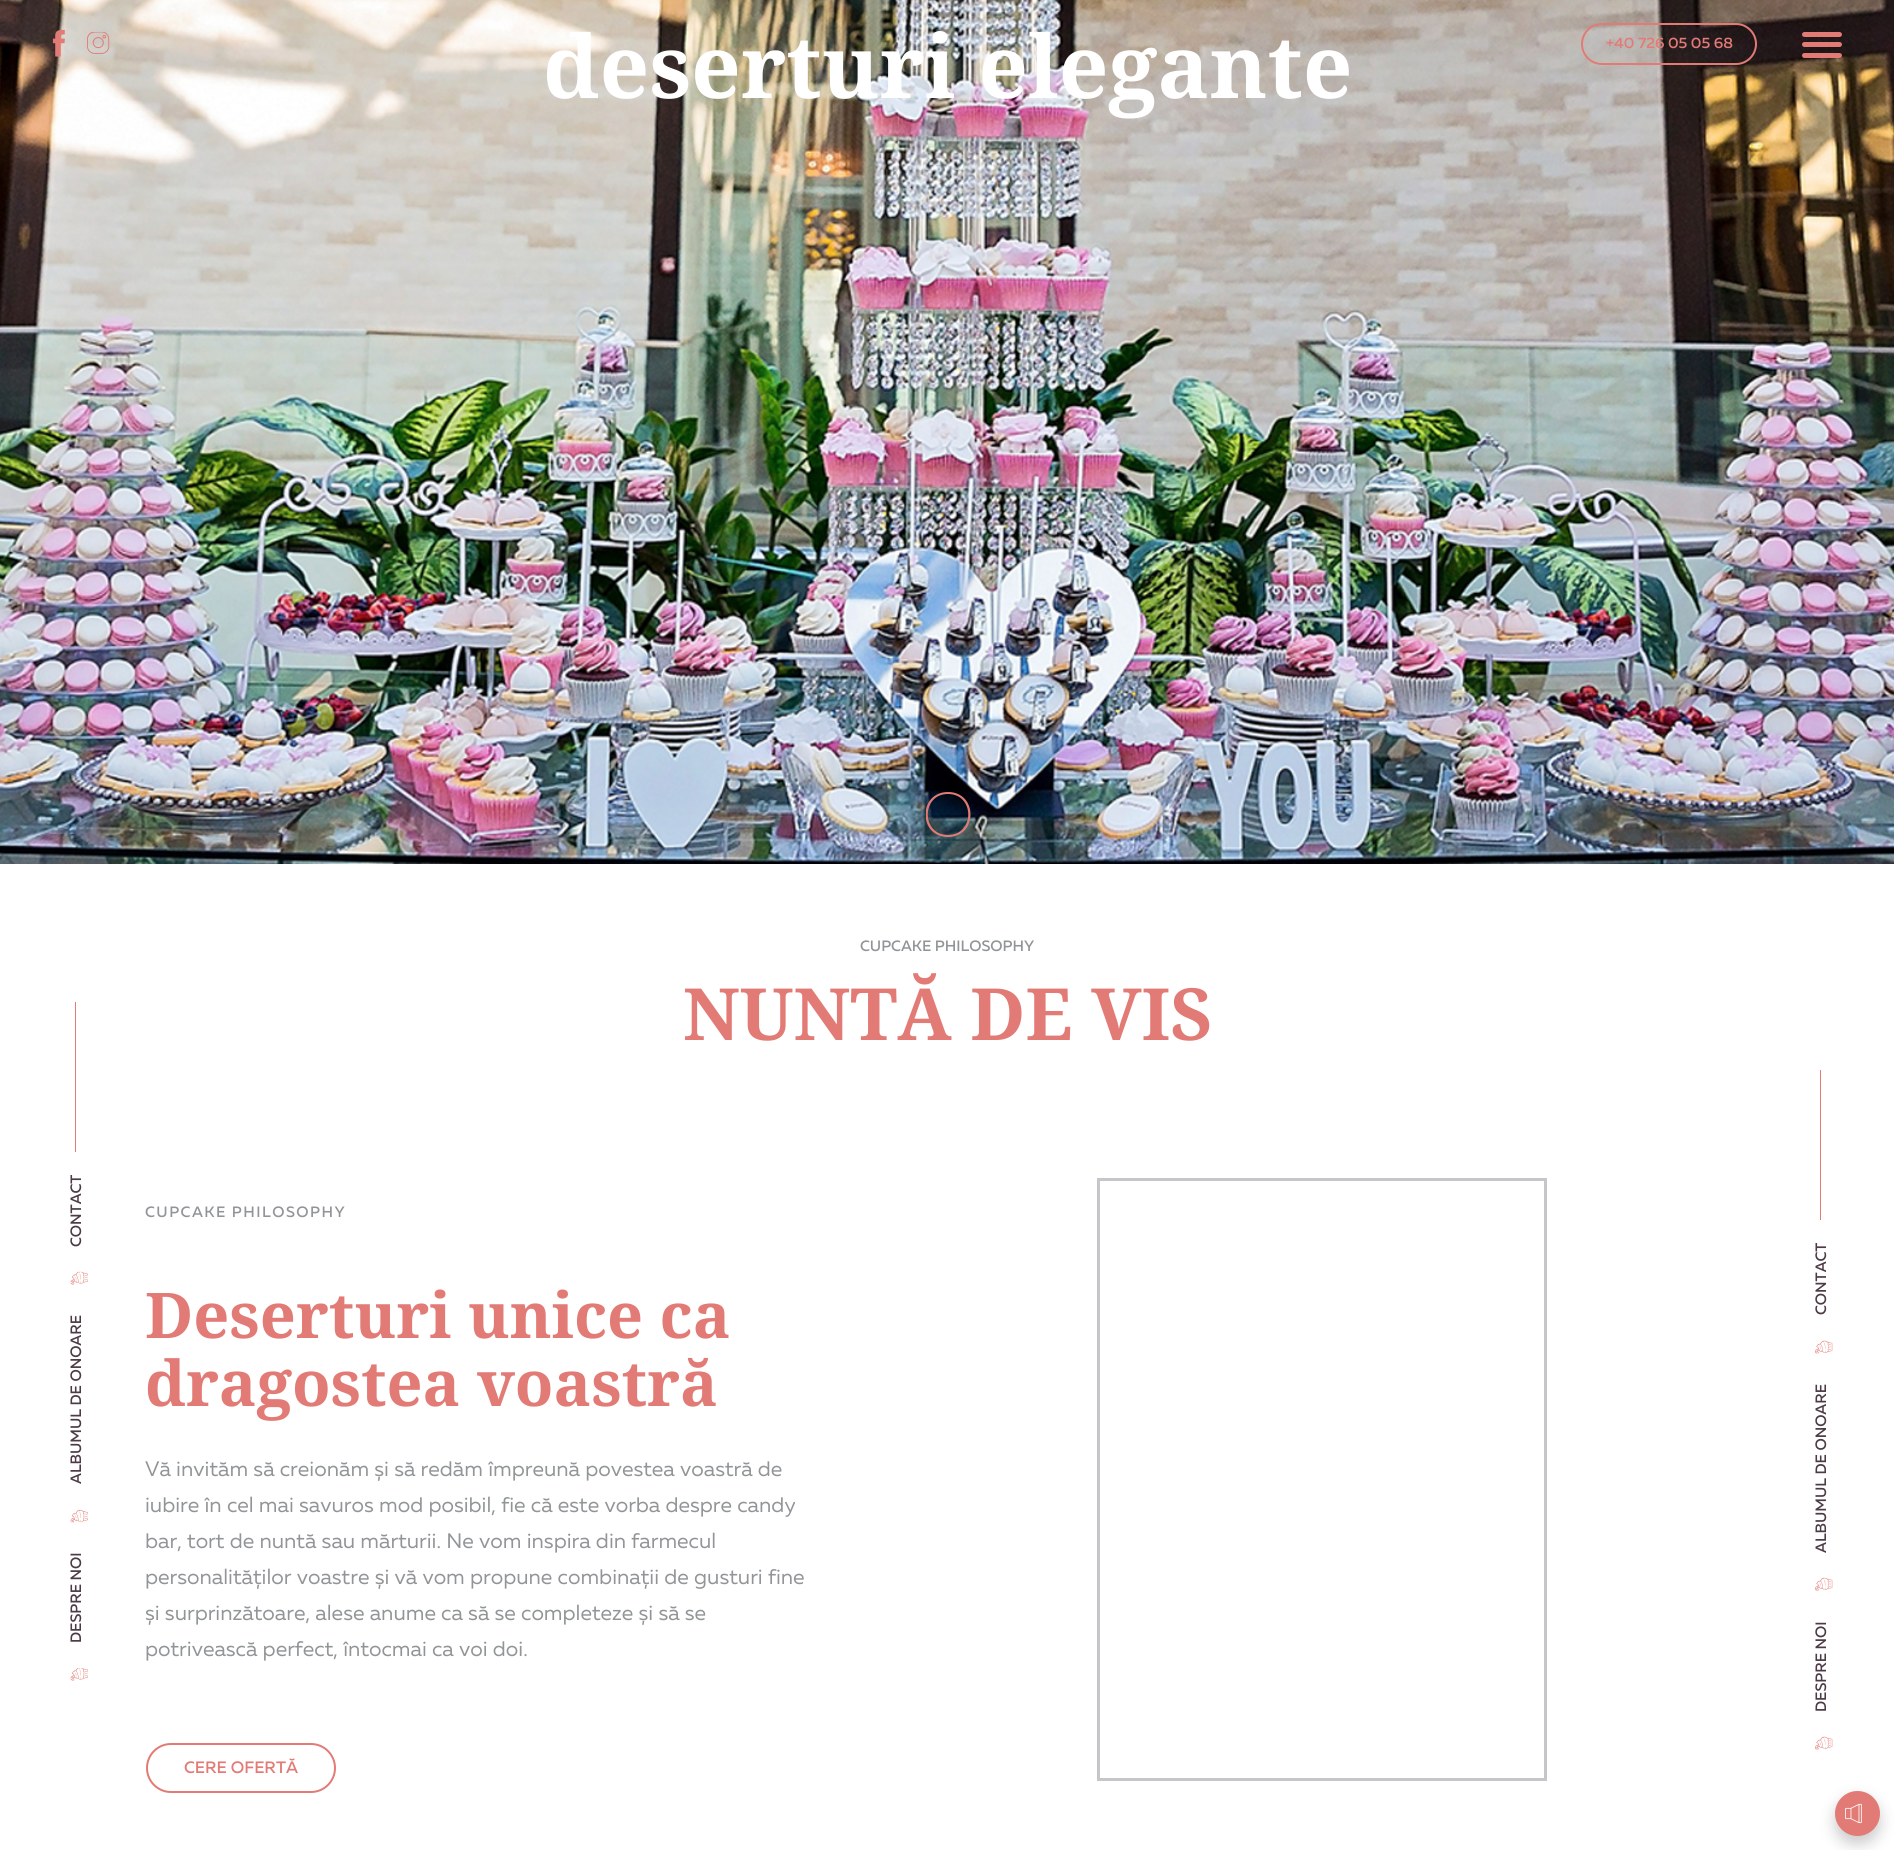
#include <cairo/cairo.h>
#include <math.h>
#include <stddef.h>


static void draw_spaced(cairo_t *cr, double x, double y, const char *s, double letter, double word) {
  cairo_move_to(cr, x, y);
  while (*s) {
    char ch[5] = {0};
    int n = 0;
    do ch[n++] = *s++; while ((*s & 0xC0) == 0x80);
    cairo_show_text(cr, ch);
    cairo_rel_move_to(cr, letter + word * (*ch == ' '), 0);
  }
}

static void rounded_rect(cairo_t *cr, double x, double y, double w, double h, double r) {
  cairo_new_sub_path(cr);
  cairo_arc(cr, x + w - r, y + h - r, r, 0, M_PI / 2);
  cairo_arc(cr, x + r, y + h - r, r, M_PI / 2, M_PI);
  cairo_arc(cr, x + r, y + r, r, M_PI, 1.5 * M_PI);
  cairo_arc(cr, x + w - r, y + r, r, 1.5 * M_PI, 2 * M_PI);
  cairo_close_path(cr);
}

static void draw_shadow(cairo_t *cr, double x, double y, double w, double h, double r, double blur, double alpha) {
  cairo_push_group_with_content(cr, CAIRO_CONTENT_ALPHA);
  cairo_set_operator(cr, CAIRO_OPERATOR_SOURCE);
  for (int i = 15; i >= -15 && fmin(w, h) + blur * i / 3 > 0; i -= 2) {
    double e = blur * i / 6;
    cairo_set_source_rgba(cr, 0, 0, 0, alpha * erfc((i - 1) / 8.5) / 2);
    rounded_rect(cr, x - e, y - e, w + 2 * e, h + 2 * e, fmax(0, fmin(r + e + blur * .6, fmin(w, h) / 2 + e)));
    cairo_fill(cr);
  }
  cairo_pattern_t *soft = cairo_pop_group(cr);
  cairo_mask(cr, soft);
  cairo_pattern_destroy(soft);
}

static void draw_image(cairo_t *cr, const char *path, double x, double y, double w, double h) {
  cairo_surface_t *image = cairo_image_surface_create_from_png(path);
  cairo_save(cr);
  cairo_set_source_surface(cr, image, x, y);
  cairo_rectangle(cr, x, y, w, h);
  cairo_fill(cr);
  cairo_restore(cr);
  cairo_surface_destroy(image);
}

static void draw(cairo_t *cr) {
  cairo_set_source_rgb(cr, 1, 1, 1);
  cairo_paint(cr);
  draw_image(cr, "images/3.png", 0, 0, 1894, 864);
  draw_image(cr, "images/1.png", 53, 30, 12, 27);
  draw_image(cr, "images/2.png", 87, 32, 23, 22);
  cairo_save(cr);
  cairo_rectangle(cr, 926, 792, 45, 45);
  cairo_clip(cr);
  cairo_set_source_rgb(cr, 226 / 255.0, 123 / 255.0, 118 / 255.0);
  cairo_new_path(cr);
  cairo_move_to(cr, 948, 794);
  cairo_curve_to(cr, 921, 794, 921, 835, 948, 835);
  cairo_curve_to(cr, 975, 835, 975, 794, 948, 794);
  cairo_close_path(cr);
  cairo_move_to(cr, 948, 837);
  cairo_curve_to(cr, 918, 837, 918, 792, 948, 792);
  cairo_curve_to(cr, 978, 792, 978, 837, 948, 837);
  cairo_close_path(cr);
  cairo_fill(cr);
  cairo_restore(cr);
  rounded_rect(cr, 1582, 24, 174, 40, 20);
  cairo_set_source_rgb(cr, 226 / 255.0, 123 / 255.0, 118 / 255.0);
  cairo_stroke(cr);
  rounded_rect(cr, 1802, 32, 40, 5, 2.5);
  cairo_fill(cr);
  rounded_rect(cr, 1802, 42, 40, 5, 2.5);
  cairo_fill(cr);
  rounded_rect(cr, 1802, 53, 40, 5, 2.5);
  cairo_fill(cr);
  cairo_rectangle(cr, 75, 1002, 1, 150);
  cairo_fill(cr);
  draw_image(cr, "images/4.png", 70, 1271, 18, 14);
  draw_image(cr, "images/5.png", 70, 1509, 18, 14);
  draw_image(cr, "images/6.png", 70, 1668, 18, 13);
  rounded_rect(cr, 147, 1744, 188, 48, 24);
  cairo_stroke(cr);
  cairo_rectangle(cr, 1098.5, 1179.5, 447, 600);
  cairo_set_source_rgb(cr, 197 / 255.0, 198 / 255.0, 202 / 255.0);
  cairo_set_line_width(cr, 3);
  cairo_stroke(cr);
  cairo_set_source_rgb(cr, 226 / 255.0, 123 / 255.0, 118 / 255.0);
  cairo_rectangle(cr, 1820, 1070, 1, 150);
  cairo_fill(cr);
  draw_image(cr, "images/7.png", 1815, 1340, 18, 14);
  draw_image(cr, "images/8.png", 1815, 1577, 18, 14);
  draw_image(cr, "images/9.png", 1815, 1736, 18, 14);
  cairo_set_source_rgb(cr, 0, 0, 0);
  draw_shadow(cr, 1835, 1799, 45, 45, 22.5, 7.5, 0.2);
  cairo_set_source_rgb(cr, 226 / 255.0, 123 / 255.0, 118 / 255.0);
  cairo_arc(cr, 1857.5, 1813.5, 22.5, 0, 2 * M_PI);
  cairo_fill(cr);
  draw_image(cr, "images/10.png", 1845, 1803, 17, 21);
  cairo_select_font_face(cr, "Noto Serif", CAIRO_FONT_SLANT_NORMAL, CAIRO_FONT_WEIGHT_BOLD);
  cairo_set_font_size(cr, 87);
  cairo_set_source_rgb(cr, 1, 1, 1);
  cairo_move_to(cr, 543, 98);
  cairo_show_text(cr, "deserturi elegante");
  cairo_select_font_face(cr, "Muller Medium", CAIRO_FONT_SLANT_NORMAL, CAIRO_FONT_WEIGHT_NORMAL);
  cairo_set_font_size(cr, 15);
  cairo_set_source_rgb(cr, 226 / 255.0, 123 / 255.0, 118 / 255.0);
  cairo_move_to(cr, 1606, 48);
  cairo_show_text(cr, "+40 726 05 05 68");
  cairo_set_source_rgb(cr, 76 / 255.0, 59 / 255.0, 71 / 255.0);
  cairo_save(cr);
  cairo_translate(cr, 81, 1247);
  cairo_rotate(cr, -90 * M_PI / 180);
  cairo_move_to(cr, 0, 0);
  cairo_show_text(cr, "CONTACT");
  cairo_restore(cr);
  cairo_save(cr);
  cairo_translate(cr, 81, 1484);
  cairo_rotate(cr, -90 * M_PI / 180);
  cairo_move_to(cr, 0, 0);
  cairo_show_text(cr, "ALBUMUL DE ONOARE");
  cairo_restore(cr);
  cairo_save(cr);
  cairo_translate(cr, 81, 1643);
  cairo_rotate(cr, -90 * M_PI / 180);
  cairo_move_to(cr, 0, 0);
  cairo_show_text(cr, "DESPRE NOI");
  cairo_restore(cr);
  cairo_set_source_rgb(cr, 146 / 255.0, 149 / 255.0, 151 / 255.0);
  cairo_move_to(cr, 860, 951);
  cairo_show_text(cr, "CUPCAKE PHILOSOPHY");
  cairo_select_font_face(cr, "Noto Serif", CAIRO_FONT_SLANT_NORMAL, CAIRO_FONT_WEIGHT_BOLD);
  cairo_set_font_size(cr, 72);
  cairo_set_source_rgb(cr, 226 / 255.0, 123 / 255.0, 118 / 255.0);
  cairo_move_to(cr, 683, 1040);
  cairo_show_text(cr, "NUNTĂ DE VIS");
  cairo_select_font_face(cr, "Muller Medium", CAIRO_FONT_SLANT_NORMAL, CAIRO_FONT_WEIGHT_NORMAL);
  cairo_set_font_size(cr, 15);
  cairo_set_source_rgb(cr, 146 / 255.0, 149 / 255.0, 151 / 255.0);
  draw_spaced(cr, 145, 1217, "CUPCAKE PHILOSOPHY", 1.5, 0);
  cairo_select_font_face(cr, "Noto Serif", CAIRO_FONT_SLANT_NORMAL, CAIRO_FONT_WEIGHT_BOLD);
  cairo_set_font_size(cr, 63);
  cairo_set_source_rgb(cr, 226 / 255.0, 123 / 255.0, 118 / 255.0);
  cairo_move_to(cr, 145, 1338);
  cairo_show_text(cr, "Deserturi unice ca");
  cairo_move_to(cr, 145, 1406);
  cairo_show_text(cr, "dragostea voastră");
  cairo_select_font_face(cr, "Muller", CAIRO_FONT_SLANT_NORMAL, CAIRO_FONT_WEIGHT_NORMAL);
  cairo_set_font_size(cr, 21);
  cairo_set_source_rgb(cr, 146 / 255.0, 149 / 255.0, 151 / 255.0);
  cairo_move_to(cr, 145, 1476);
  cairo_show_text(cr, "Vă invităm să creionăm și să redăm împreună povestea voastră de");
  cairo_move_to(cr, 145, 1512);
  cairo_show_text(cr, "iubire în cel mai savuros mod posibil, fie că este vorba despre candy");
  cairo_move_to(cr, 145, 1548);
  cairo_show_text(cr, "bar, tort de nuntă sau mărturii. Ne vom inspira din farmecul");
  cairo_move_to(cr, 145, 1584);
  cairo_show_text(cr, "personalităților voastre și vă vom propune combinații de gusturi fine");
  cairo_move_to(cr, 145, 1620);
  cairo_show_text(cr, "și surprinzătoare, alese anume ca să se completeze și să se");
  cairo_move_to(cr, 145, 1656);
  cairo_show_text(cr, "potrivească perfect, întocmai ca voi doi.");
  cairo_select_font_face(cr, "Muller Medium", CAIRO_FONT_SLANT_NORMAL, CAIRO_FONT_WEIGHT_NORMAL);
  cairo_set_font_size(cr, 16.5);
  cairo_set_source_rgb(cr, 226 / 255.0, 123 / 255.0, 118 / 255.0);
  cairo_move_to(cr, 184, 1773);
  cairo_show_text(cr, "CERE OFERTĂ");
  cairo_set_font_size(cr, 15);
  cairo_set_source_rgb(cr, 76 / 255.0, 59 / 255.0, 71 / 255.0);
  cairo_save(cr);
  cairo_translate(cr, 1826, 1315);
  cairo_rotate(cr, -90 * M_PI / 180);
  cairo_move_to(cr, 0, 0);
  cairo_show_text(cr, "CONTACT");
  cairo_restore(cr);
  cairo_save(cr);
  cairo_translate(cr, 1826, 1553);
  cairo_rotate(cr, -90 * M_PI / 180);
  cairo_move_to(cr, 0, 0);
  cairo_show_text(cr, "ALBUMUL DE ONOARE");
  cairo_restore(cr);
  cairo_save(cr);
  cairo_translate(cr, 1826, 1712);
  cairo_rotate(cr, -90 * M_PI / 180);
  cairo_move_to(cr, 0, 0);
  cairo_show_text(cr, "DESPRE NOI");
  cairo_restore(cr);
}

int main(void) {
  cairo_surface_t *surface = cairo_image_surface_create(CAIRO_FORMAT_RGB24, 1894, 1850);
  cairo_t *cr = cairo_create(surface);
  cairo_font_options_t *options = cairo_font_options_create();
  cairo_font_options_set_hint_metrics(options, CAIRO_HINT_METRICS_OFF);
  cairo_font_options_set_hint_style(options, CAIRO_HINT_STYLE_NONE);
  cairo_set_font_options(cr, options);
  cairo_set_miter_limit(cr, 4);
  draw(cr);
  cairo_surface_write_to_png(surface, "out.png");
  cairo_font_options_destroy(options);
  cairo_destroy(cr);
  cairo_surface_destroy(surface);
  return 0;
}
